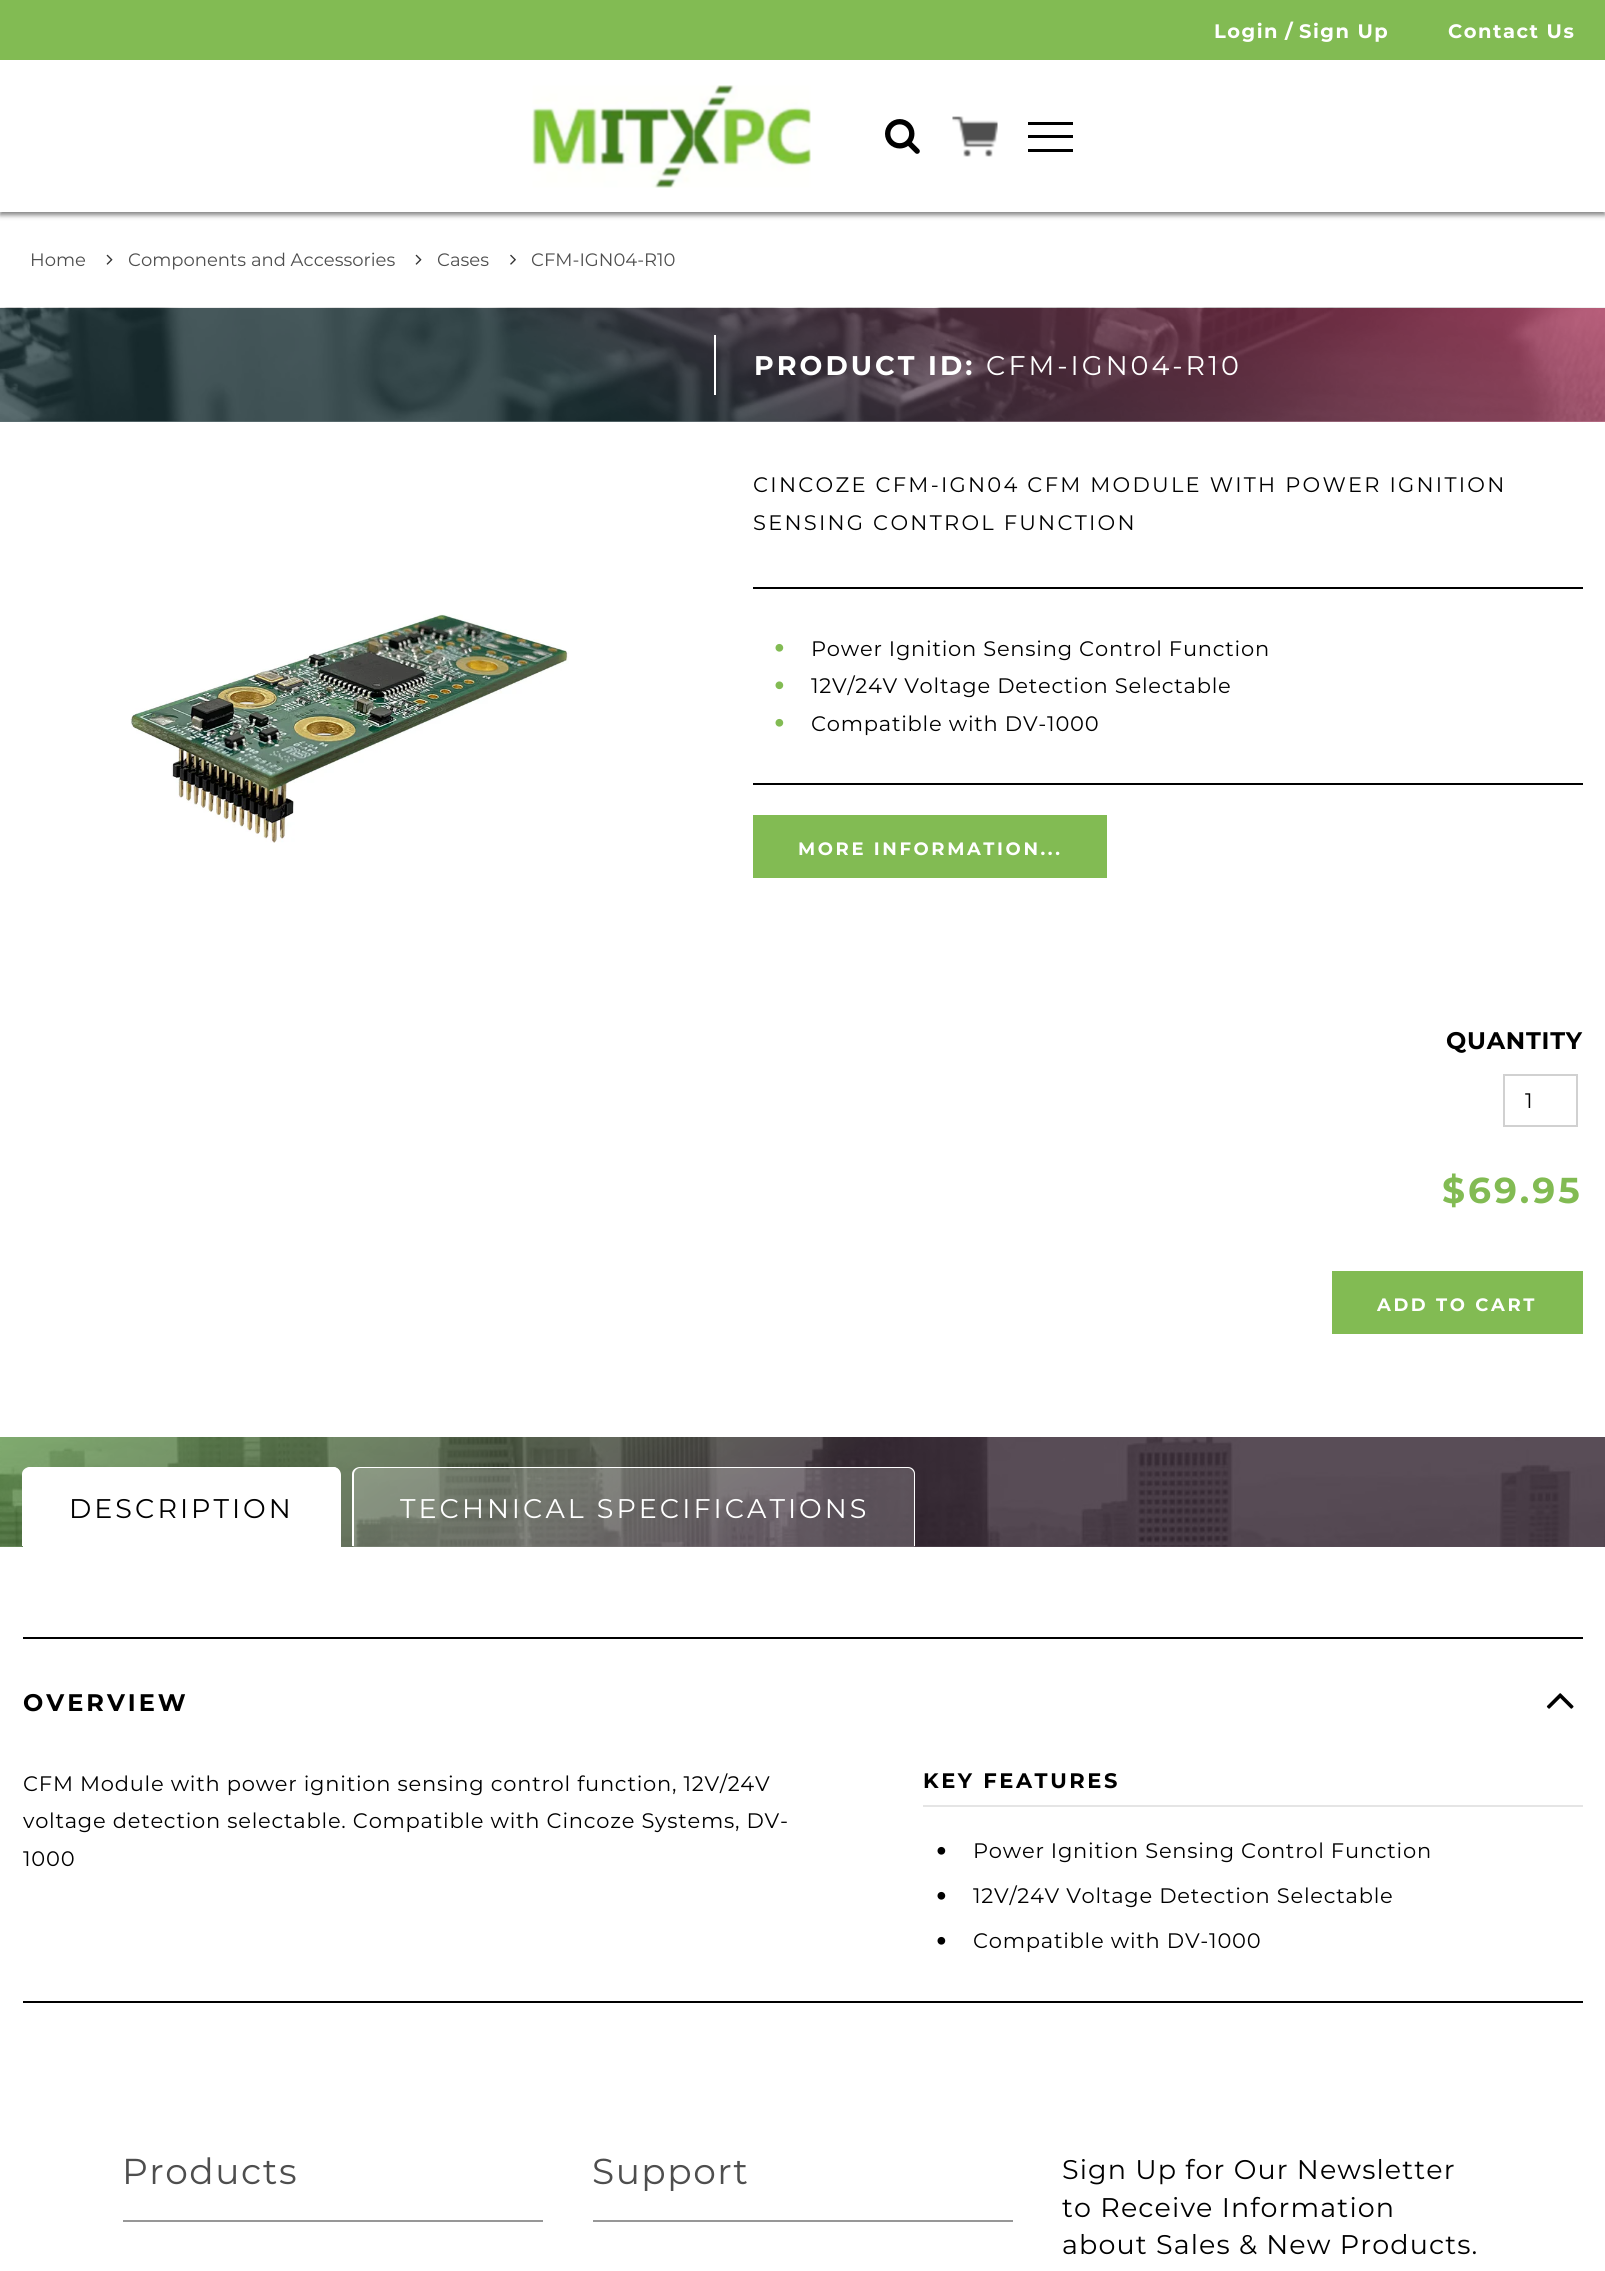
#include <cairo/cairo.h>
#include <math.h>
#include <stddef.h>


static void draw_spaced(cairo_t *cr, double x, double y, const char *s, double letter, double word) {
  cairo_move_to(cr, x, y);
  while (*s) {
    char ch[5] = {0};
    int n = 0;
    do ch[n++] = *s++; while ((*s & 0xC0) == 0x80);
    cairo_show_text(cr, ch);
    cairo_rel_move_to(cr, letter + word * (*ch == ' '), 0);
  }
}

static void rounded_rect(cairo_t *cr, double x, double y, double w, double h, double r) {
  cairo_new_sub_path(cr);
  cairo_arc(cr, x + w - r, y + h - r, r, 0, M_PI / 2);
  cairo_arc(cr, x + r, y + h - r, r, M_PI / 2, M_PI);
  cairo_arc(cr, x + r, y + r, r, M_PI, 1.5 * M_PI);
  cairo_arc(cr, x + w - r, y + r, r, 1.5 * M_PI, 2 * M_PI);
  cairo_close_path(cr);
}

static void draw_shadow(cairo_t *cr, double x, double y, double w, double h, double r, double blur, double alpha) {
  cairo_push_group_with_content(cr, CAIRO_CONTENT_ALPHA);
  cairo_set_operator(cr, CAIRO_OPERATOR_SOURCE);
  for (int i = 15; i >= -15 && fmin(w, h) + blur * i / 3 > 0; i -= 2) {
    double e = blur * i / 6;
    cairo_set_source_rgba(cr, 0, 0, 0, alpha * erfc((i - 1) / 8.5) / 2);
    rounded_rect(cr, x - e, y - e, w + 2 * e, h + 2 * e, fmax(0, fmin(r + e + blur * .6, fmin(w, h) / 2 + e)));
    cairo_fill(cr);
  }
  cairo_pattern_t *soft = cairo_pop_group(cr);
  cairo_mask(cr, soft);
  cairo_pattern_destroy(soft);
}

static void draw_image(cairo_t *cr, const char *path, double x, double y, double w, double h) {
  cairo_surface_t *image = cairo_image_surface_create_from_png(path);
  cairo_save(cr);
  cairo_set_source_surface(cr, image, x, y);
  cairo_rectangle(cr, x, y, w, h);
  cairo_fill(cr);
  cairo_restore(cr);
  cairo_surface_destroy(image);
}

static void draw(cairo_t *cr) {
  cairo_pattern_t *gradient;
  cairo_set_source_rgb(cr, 1, 1, 1);
  cairo_paint(cr);
  cairo_set_source_rgb(cr, 0, 0, 0);
  draw_shadow(cr, 0, 3, 1605, 212, 0, 2.5, 0.5);
  cairo_set_source_rgb(cr, 1, 1, 1);
  cairo_rectangle(cr, 0, 60, 1605, 152);
  cairo_fill(cr);
  cairo_set_source_rgb(cr, 130 / 255.0, 187 / 255.0, 83 / 255.0);
  cairo_rectangle(cr, 0, 0, 1605, 60);
  cairo_fill(cr);
  draw_image(cr, "images/1.png", 532, 85, 279, 103);
  draw_image(cr, "images/2.png", 885, 119, 35, 35);
  draw_image(cr, "images/3.png", 952, 116, 46, 41);
  cairo_set_source_rgb(cr, 0, 0, 0);
  cairo_rectangle(cr, 1028, 122, 45, 3);
  cairo_fill(cr);
  cairo_rectangle(cr, 1028, 135, 45, 3);
  cairo_fill(cr);
  cairo_rectangle(cr, 1028, 149, 45, 3);
  cairo_fill(cr);
  draw_image(cr, "images/4.png", 106, 254, 7, 11);
  draw_image(cr, "images/4.png", 415, 254, 7, 11);
  draw_image(cr, "images/5.png", 510, 254, 6, 11);
  draw_image(cr, "images/6.png", 0, 307, 1605, 115);
  gradient = cairo_pattern_create_linear(512, 780, 1093, -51);
  cairo_pattern_add_color_stop_rgba(gradient, 0.35, 25 / 255.0, 51 / 255.0, 56 / 255.0, 0.7);
  cairo_pattern_add_color_stop_rgba(gradient, 1, 177 / 255.0, 49 / 255.0, 89 / 255.0, 0.7);
  cairo_set_source(cr, gradient);
  cairo_pattern_destroy(gradient);
  cairo_rectangle(cr, 0, 308, 1605, 114);
  cairo_fill(cr);
  cairo_set_source_rgb(cr, 1, 1, 1);
  cairo_rectangle(cr, 714, 335, 2, 60);
  cairo_fill(cr);
  draw_image(cr, "images/7.png", 130, 614, 439, 229);
  cairo_set_source_rgb(cr, 0, 0, 0);
  cairo_rectangle(cr, 753, 587, 830, 2);
  cairo_fill(cr);
  cairo_rectangle(cr, 753, 783, 830, 2);
  cairo_fill(cr);
  draw_image(cr, "images/8.png", 775, 643, 9, 9);
  draw_image(cr, "images/9.png", 775, 681, 9, 9);
  draw_image(cr, "images/8.png", 775, 718, 9, 9);
  cairo_set_source_rgb(cr, 130 / 255.0, 187 / 255.0, 83 / 255.0);
  cairo_rectangle(cr, 753, 815, 354, 63);
  cairo_fill(cr);
  cairo_rectangle(cr, 1504, 1075, 73, 51);
  cairo_set_source_rgb(cr, 209 / 255.0, 209 / 255.0, 209 / 255.0);
  cairo_stroke(cr);
  cairo_set_source_rgb(cr, 130 / 255.0, 187 / 255.0, 83 / 255.0);
  cairo_rectangle(cr, 1332, 1271, 251, 63);
  cairo_fill(cr);
  draw_image(cr, "images/10.png", 0, 1437, 1605, 110);
  gradient = cairo_pattern_create_linear(1092, 1906, 513, 1078);
  cairo_pattern_add_color_stop_rgba(gradient, 0.5, 18 / 255.0, 2 / 255.0, 15 / 255.0, 0.7);
  cairo_pattern_add_color_stop_rgba(gradient, 1, 77 / 255.0, 139 / 255.0, 53 / 255.0, 0.7);
  cairo_set_source(cr, gradient);
  cairo_pattern_destroy(gradient);
  cairo_rectangle(cr, 0, 1437, 1605, 110);
  cairo_fill(cr);
  cairo_set_source_rgb(cr, 1, 1, 1);
  cairo_new_path(cr);
  cairo_move_to(cr, 31, 1467);
  cairo_line_to(cr, 333, 1467);
  cairo_curve_to(cr, 337.5, 1467, 341, 1470.5, 341, 1475);
  cairo_line_to(cr, 341, 1547);
  cairo_line_to(cr, 23, 1547);
  cairo_line_to(cr, 23, 1475);
  cairo_curve_to(cr, 23, 1470.5, 26.5, 1467, 31, 1467);
  cairo_close_path(cr);
  cairo_fill(cr);
  cairo_set_fill_rule(cr, CAIRO_FILL_RULE_EVEN_ODD);
  cairo_new_path(cr);
  cairo_move_to(cr, 30, 1467);
  cairo_line_to(cr, 333, 1467);
  cairo_curve_to(cr, 337, 1467, 340, 1470, 340, 1474);
  cairo_line_to(cr, 340, 1546);
  cairo_line_to(cr, 22, 1546);
  cairo_line_to(cr, 22, 1474);
  cairo_curve_to(cr, 22, 1470, 26, 1467, 30, 1467);
  cairo_close_path(cr);
  cairo_move_to(cr, 30, 1468);
  cairo_line_to(cr, 333, 1468);
  cairo_curve_to(cr, 336, 1468, 339, 1471, 339, 1474);
  cairo_line_to(cr, 339, 1546);
  cairo_line_to(cr, 24, 1546);
  cairo_line_to(cr, 24, 1474);
  cairo_curve_to(cr, 24, 1471, 27, 1468, 30, 1468);
  cairo_close_path(cr);
  cairo_fill(cr);
  cairo_set_source_rgba(cr, 1, 1, 1, 0.2);
  cairo_new_path(cr);
  cairo_move_to(cr, 361, 1467);
  cairo_line_to(cr, 907, 1467);
  cairo_curve_to(cr, 911.5, 1467, 915, 1470.5, 915, 1475);
  cairo_line_to(cr, 915, 1547);
  cairo_line_to(cr, 353, 1547);
  cairo_line_to(cr, 353, 1475);
  cairo_curve_to(cr, 353, 1470.5, 356.5, 1467, 361, 1467);
  cairo_close_path(cr);
  cairo_fill(cr);
  cairo_set_source_rgb(cr, 1, 1, 1);
  cairo_new_path(cr);
  cairo_move_to(cr, 360, 1467);
  cairo_line_to(cr, 908, 1467);
  cairo_curve_to(cr, 912, 1467, 915, 1470, 915, 1474);
  cairo_line_to(cr, 915, 1546);
  cairo_line_to(cr, 352, 1546);
  cairo_line_to(cr, 352, 1474);
  cairo_curve_to(cr, 352, 1470, 356, 1467, 360, 1467);
  cairo_close_path(cr);
  cairo_move_to(cr, 360, 1468);
  cairo_line_to(cr, 908, 1468);
  cairo_curve_to(cr, 911, 1468, 914, 1471, 914, 1474);
  cairo_line_to(cr, 914, 1546);
  cairo_line_to(cr, 354, 1546);
  cairo_line_to(cr, 354, 1474);
  cairo_curve_to(cr, 354, 1471, 357, 1468, 360, 1468);
  cairo_close_path(cr);
  cairo_fill(cr);
  cairo_set_source_rgb(cr, 0, 0, 0);
  cairo_rectangle(cr, 23, 1637, 1560, 2);
  cairo_fill(cr);
  cairo_rectangle(cr, 23, 2001, 1560, 2);
  cairo_fill(cr);
  draw_image(cr, "images/11.png", 1546, 1693, 28, 16);
  cairo_set_source_rgb(cr, 229 / 255.0, 229 / 255.0, 229 / 255.0);
  cairo_rectangle(cr, 923, 1805, 660, 2);
  cairo_fill(cr);
  draw_image(cr, "images/12.png", 937, 1846, 9, 9);
  draw_image(cr, "images/12.png", 937, 1891, 9, 9);
  draw_image(cr, "images/12.png", 937, 1936, 9, 9);
  cairo_set_source_rgb(cr, 151 / 255.0, 151 / 255.0, 151 / 255.0);
  cairo_rectangle(cr, 123, 2220, 420, 2);
  cairo_fill(cr);
  cairo_rectangle(cr, 593, 2220, 420, 2);
  cairo_fill(cr);
  cairo_select_font_face(cr, "Montserrat", CAIRO_FONT_SLANT_NORMAL, CAIRO_FONT_WEIGHT_BOLD);
  cairo_set_font_size(cr, 19.5);
  cairo_set_source_rgb(cr, 1, 1, 1);
  draw_spaced(cr, 1214, 38, "Login", 1.5, 0);
  draw_spaced(cr, 1285, 38, "/", 1.5, 0);
  draw_spaced(cr, 1299, 38, "Sign Up", 1.5, 0);
  draw_spaced(cr, 1448, 38, "Contact Us", 1.5, 0);
  cairo_select_font_face(cr, "Montserrat", CAIRO_FONT_SLANT_NORMAL, CAIRO_FONT_WEIGHT_NORMAL);
  cairo_set_font_size(cr, 18);
  cairo_set_source_rgb(cr, 78 / 255.0, 78 / 255.0, 78 / 255.0);
  cairo_move_to(cr, 30, 266);
  cairo_show_text(cr, "Home");
  cairo_move_to(cr, 128, 266);
  cairo_show_text(cr, "Components and Accessories");
  cairo_move_to(cr, 437, 266);
  cairo_show_text(cr, "Cases");
  cairo_move_to(cr, 531, 266);
  cairo_show_text(cr, "CFM-IGN04-R10");
  cairo_select_font_face(cr, "Montserrat", CAIRO_FONT_SLANT_NORMAL, CAIRO_FONT_WEIGHT_BOLD);
  cairo_set_font_size(cr, 27);
  cairo_set_source_rgb(cr, 1, 1, 1);
  draw_spaced(cr, 754, 375, "PRODUCT ID:", 3, 0);
  cairo_select_font_face(cr, "Montserrat", CAIRO_FONT_SLANT_NORMAL, CAIRO_FONT_WEIGHT_NORMAL);
  draw_spaced(cr, 986, 375, "CFM-IGN04-R10", 3, 0);
  cairo_set_font_size(cr, 21);
  cairo_set_source_rgb(cr, 0, 0, 0);
  draw_spaced(cr, 753, 492, "CINCOZE CFM-IGN04 CFM MODULE WITH POWER IGNITION", 2.25, 0);
  draw_spaced(cr, 753, 530, "SENSING CONTROL FUNCTION", 2.25, 0);
  draw_spaced(cr, 811, 656, "Power Ignition Sensing Control Function", 0.75, 0);
  draw_spaced(cr, 811, 693, "12V/24V Voltage Detection Selectable", 0.75, 0);
  draw_spaced(cr, 811, 731, "Compatible with DV-1000", 0.75, 0);
  cairo_select_font_face(cr, "Montserrat", CAIRO_FONT_SLANT_NORMAL, CAIRO_FONT_WEIGHT_BOLD);
  cairo_set_font_size(cr, 18);
  cairo_set_source_rgb(cr, 1, 1, 1);
  draw_spaced(cr, 798, 855, "MORE INFORMATION...", 2.6, 0);
  cairo_set_font_size(cr, 24);
  cairo_set_source_rgb(cr, 0, 0, 0);
  draw_spaced(cr, 1446, 1049, "QUANTITY", 0.75, 0);
  cairo_select_font_face(cr, "Montserrat", CAIRO_FONT_SLANT_NORMAL, CAIRO_FONT_WEIGHT_NORMAL);
  cairo_set_font_size(cr, 21);
  cairo_move_to(cr, 1525, 1108);
  cairo_show_text(cr, "1");
  cairo_select_font_face(cr, "Montserrat", CAIRO_FONT_SLANT_NORMAL, CAIRO_FONT_WEIGHT_BOLD);
  cairo_set_font_size(cr, 36);
  cairo_set_source_rgb(cr, 130 / 255.0, 187 / 255.0, 83 / 255.0);
  draw_spaced(cr, 1442, 1203, "$69.95", 3, 0);
  cairo_set_font_size(cr, 18);
  cairo_set_source_rgb(cr, 1, 1, 1);
  draw_spaced(cr, 1377, 1311, "ADD TO CART", 2.6, 0);
  cairo_select_font_face(cr, "Montserrat", CAIRO_FONT_SLANT_NORMAL, CAIRO_FONT_WEIGHT_NORMAL);
  cairo_set_font_size(cr, 27);
  cairo_set_source_rgb(cr, 0, 0, 0);
  draw_spaced(cr, 69, 1518, "DESCRIPTION", 3, 0);
  cairo_set_source_rgb(cr, 1, 1, 1);
  draw_spaced(cr, 400, 1518, "TECHNICAL SPECIFICATIONS", 3, 0);
  cairo_select_font_face(cr, "Montserrat", CAIRO_FONT_SLANT_NORMAL, CAIRO_FONT_WEIGHT_BOLD);
  cairo_set_font_size(cr, 24);
  cairo_set_source_rgb(cr, 0, 0, 0);
  draw_spaced(cr, 23, 1711, "OVERVIEW", 3, 0);
  cairo_select_font_face(cr, "Montserrat", CAIRO_FONT_SLANT_NORMAL, CAIRO_FONT_WEIGHT_NORMAL);
  cairo_set_font_size(cr, 21);
  draw_spaced(cr, 23, 1791, "CFM Module with power ignition sensing control function, 12V/24V", 0.75, 0);
  draw_spaced(cr, 23, 1828, "voltage detection selectable. Compatible with Cincoze Systems, DV-", 0.75, 0);
  draw_spaced(cr, 23, 1866, "1000", 0.75, 0);
  cairo_select_font_face(cr, "Montserrat", CAIRO_FONT_SLANT_NORMAL, CAIRO_FONT_WEIGHT_BOLD);
  draw_spaced(cr, 923, 1788, "KEY FEATURES", 2.6, 0);
  cairo_select_font_face(cr, "Montserrat", CAIRO_FONT_SLANT_NORMAL, CAIRO_FONT_WEIGHT_NORMAL);
  draw_spaced(cr, 973, 1858, "Power Ignition Sensing Control Function", 0.75, 0);
  draw_spaced(cr, 973, 1903, "12V/24V Voltage Detection Selectable", 0.75, 0);
  draw_spaced(cr, 973, 1948, "Compatible with DV-1000", 0.75, 0);
  cairo_set_font_size(cr, 36);
  cairo_set_source_rgb(cr, 78 / 255.0, 78 / 255.0, 78 / 255.0);
  draw_spaced(cr, 122, 2184, "Products", 1.5, 0);
  draw_spaced(cr, 592, 2184, "Support", 1.5, 0);
  cairo_set_font_size(cr, 27);
  cairo_set_source_rgb(cr, 0, 0, 0);
  draw_spaced(cr, 1062, 2179, "Sign Up for Our Newsletter", 1.1, 0);
  draw_spaced(cr, 1062, 2217, "to Receive Information", 1.1, 0);
  draw_spaced(cr, 1062, 2254, "about Sales & New Products.", 1.1, 0);
}

int main(void) {
  cairo_surface_t *surface = cairo_image_surface_create(CAIRO_FORMAT_RGB24, 1605, 2271);
  cairo_t *cr = cairo_create(surface);
  cairo_font_options_t *options = cairo_font_options_create();
  cairo_font_options_set_hint_metrics(options, CAIRO_HINT_METRICS_OFF);
  cairo_font_options_set_hint_style(options, CAIRO_HINT_STYLE_NONE);
  cairo_set_font_options(cr, options);
  cairo_set_miter_limit(cr, 4);
  draw(cr);
  cairo_surface_write_to_png(surface, "out.png");
  cairo_font_options_destroy(options);
  cairo_destroy(cr);
  cairo_surface_destroy(surface);
  return 0;
}
